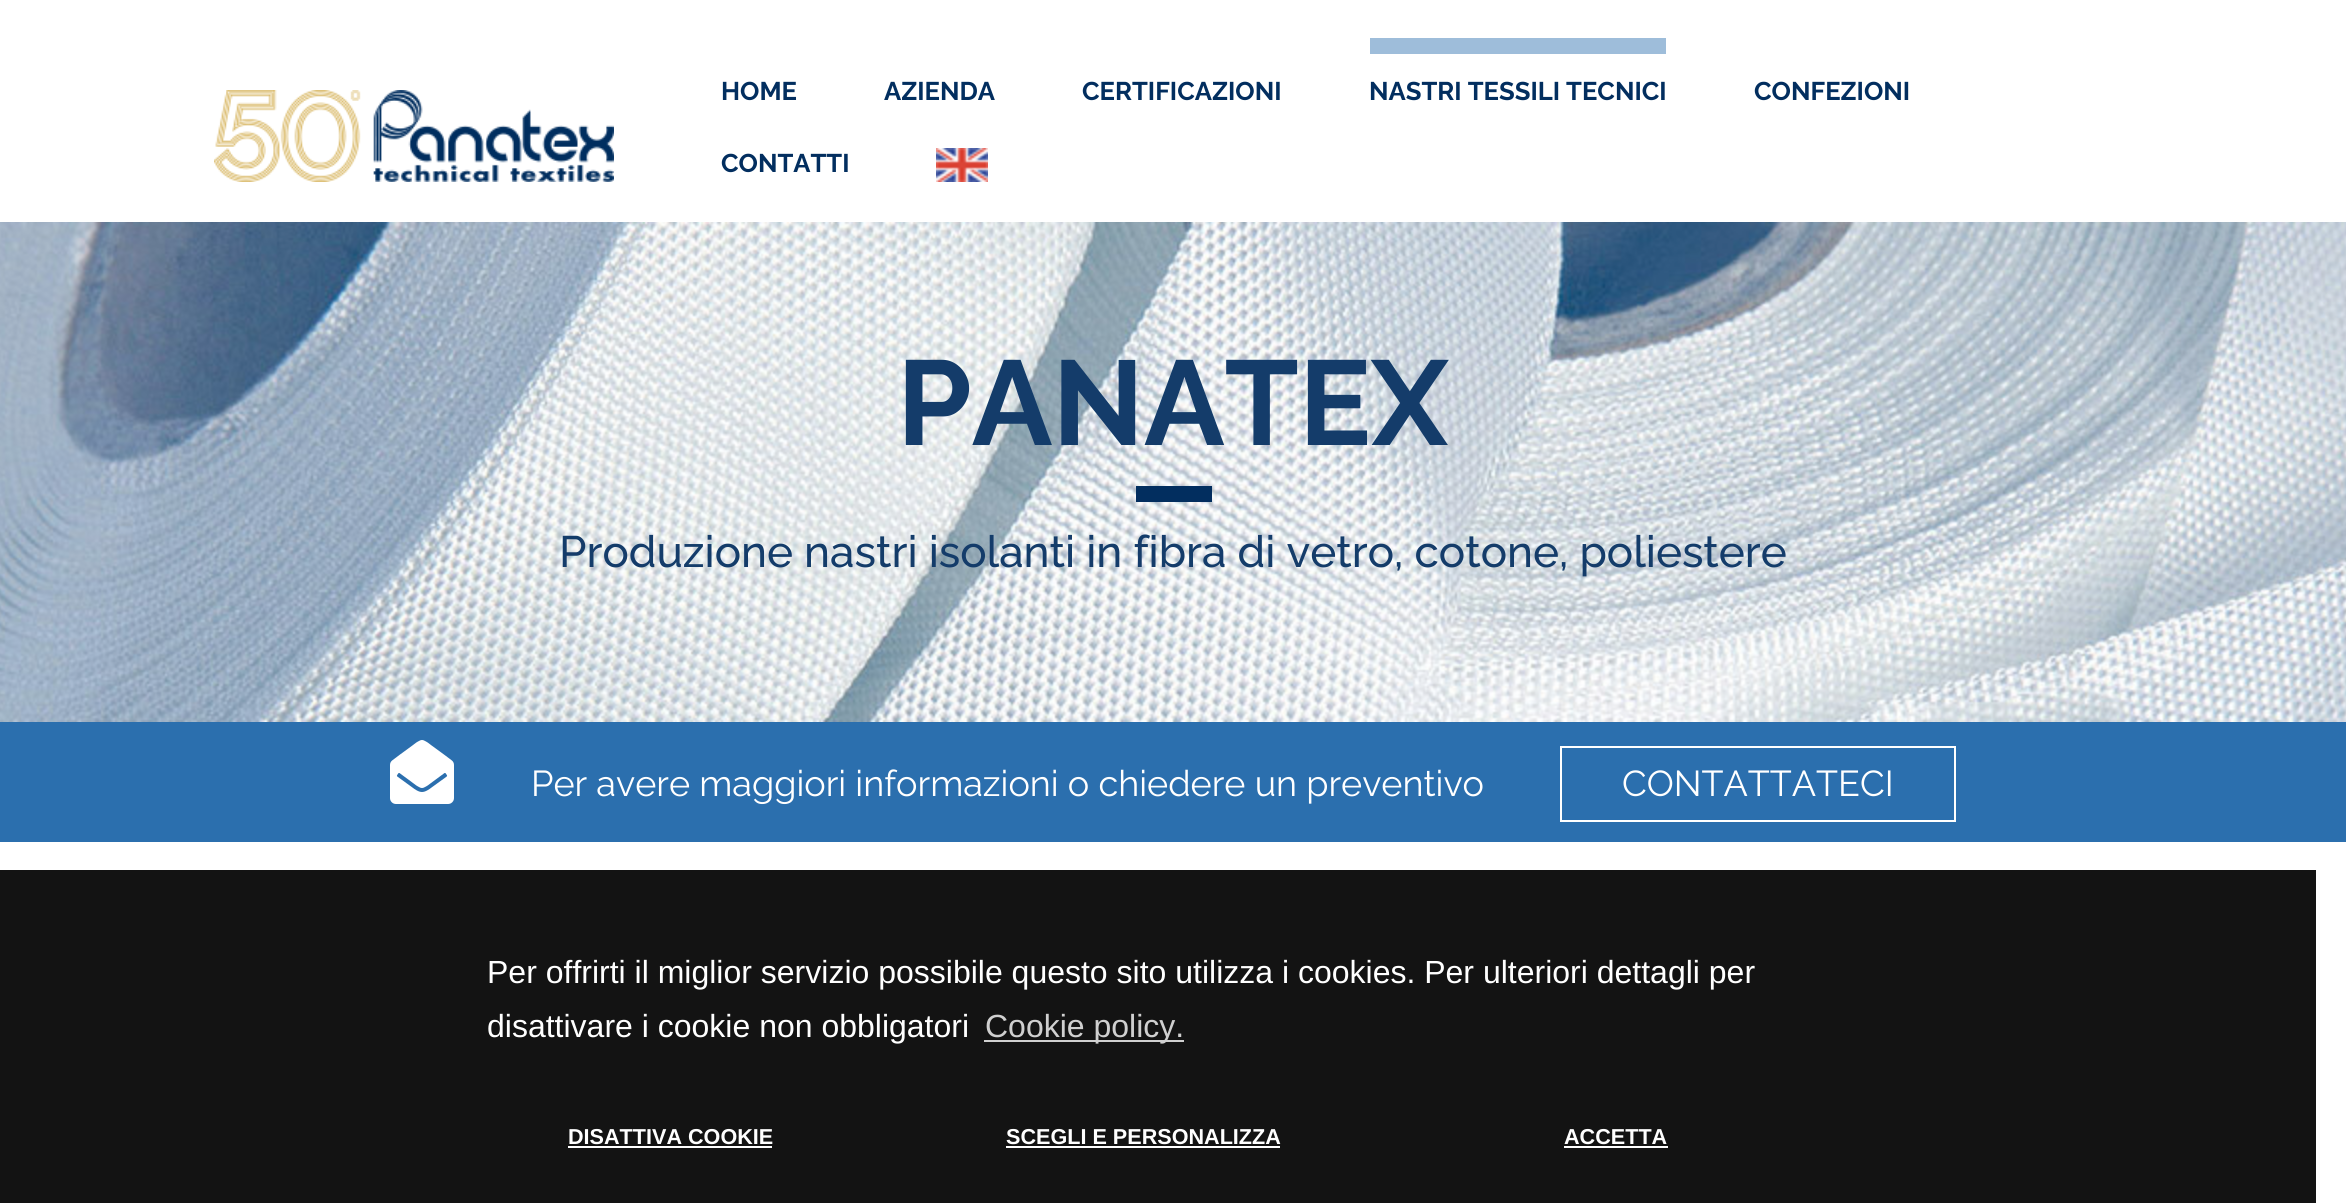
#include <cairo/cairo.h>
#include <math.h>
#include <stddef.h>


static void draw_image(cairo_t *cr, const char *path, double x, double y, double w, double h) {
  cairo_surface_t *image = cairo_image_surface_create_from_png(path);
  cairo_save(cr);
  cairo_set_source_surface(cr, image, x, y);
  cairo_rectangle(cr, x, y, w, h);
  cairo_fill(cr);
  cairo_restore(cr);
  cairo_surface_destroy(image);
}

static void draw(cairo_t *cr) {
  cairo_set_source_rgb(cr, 1, 1, 1);
  cairo_paint(cr);
  draw_image(cr, "images/1.png", 214, 90, 400, 92);
  cairo_set_source_rgb(cr, 158 / 255.0, 189 / 255.0, 218 / 255.0);
  cairo_rectangle(cr, 1370, 38, 296, 16);
  cairo_fill(cr);
  draw_image(cr, "images/2.png", 936, 148, 52, 34);
  draw_image(cr, "images/3.png", 0, 222, 2346, 500);
  cairo_set_source_rgb(cr, 2 / 255.0, 46 / 255.0, 95 / 255.0);
  cairo_rectangle(cr, 1136, 486, 76, 16);
  cairo_fill(cr);
  cairo_set_source_rgb(cr, 43 / 255.0, 111 / 255.0, 174 / 255.0);
  cairo_rectangle(cr, 0, 722, 2346, 120);
  cairo_fill(cr);
  draw_image(cr, "images/4.png", 390, 740, 64, 64);
  cairo_rectangle(cr, 1561, 747, 394, 74);
  cairo_set_source_rgb(cr, 1, 1, 1);
  cairo_stroke(cr);
  cairo_set_source_rgb(cr, 19 / 255.0, 19 / 255.0, 19 / 255.0);
  cairo_rectangle(cr, 0, 870, 2316, 333);
  cairo_fill(cr);
  cairo_set_source_rgb(cr, 208 / 255.0, 208 / 255.0, 208 / 255.0);
  cairo_rectangle(cr, 984, 1040, 200, 2);
  cairo_fill(cr);
  cairo_set_source_rgb(cr, 1, 1, 1);
  cairo_rectangle(cr, 568, 1146, 204, 2);
  cairo_fill(cr);
  cairo_rectangle(cr, 1006, 1146, 274, 2);
  cairo_fill(cr);
  cairo_rectangle(cr, 1564, 1146, 104, 2);
  cairo_fill(cr);
  cairo_select_font_face(cr, "Raleway", CAIRO_FONT_SLANT_NORMAL, CAIRO_FONT_WEIGHT_BOLD);
  cairo_set_font_size(cr, 25.6);
  cairo_set_source_rgb(cr, 2 / 255.0, 46 / 255.0, 95 / 255.0);
  cairo_move_to(cr, 721, 100);
  cairo_show_text(cr, "HOME");
  cairo_move_to(cr, 884, 100);
  cairo_show_text(cr, "AZIENDA");
  cairo_move_to(cr, 1082, 100);
  cairo_show_text(cr, "CERTIFICAZIONI");
  cairo_move_to(cr, 1369, 100);
  cairo_show_text(cr, "NASTRI TESSILI TECNICI");
  cairo_move_to(cr, 1754, 100);
  cairo_show_text(cr, "CONFEZIONI");
  cairo_move_to(cr, 721, 172);
  cairo_show_text(cr, "CONTATTI");
  cairo_set_font_size(cr, 120);
  cairo_set_source_rgb(cr, 20 / 255.0, 60 / 255.0, 106 / 255.0);
  cairo_move_to(cr, 897, 445);
  cairo_show_text(cr, "PANATEX");
  cairo_select_font_face(cr, "Raleway Medium", CAIRO_FONT_SLANT_NORMAL, CAIRO_FONT_WEIGHT_NORMAL);
  cairo_set_font_size(cr, 44);
  cairo_move_to(cr, 559, 567);
  cairo_show_text(cr, "Produzione nastri isolanti in fibra di vetro, cotone, poliestere");
  cairo_select_font_face(cr, "Raleway", CAIRO_FONT_SLANT_NORMAL, CAIRO_FONT_WEIGHT_NORMAL);
  cairo_set_font_size(cr, 36);
  cairo_set_source_rgb(cr, 1, 1, 1);
  cairo_move_to(cr, 531, 796);
  cairo_show_text(cr, "Per avere maggiori informazioni o chiedere un preventivo");
  cairo_move_to(cr, 1622, 796);
  cairo_show_text(cr, "CONTATTATECI");
  cairo_select_font_face(cr, "Liberation Sans", CAIRO_FONT_SLANT_NORMAL, CAIRO_FONT_WEIGHT_NORMAL);
  cairo_set_font_size(cr, 32);
  cairo_move_to(cr, 487, 983);
  cairo_show_text(cr, "Per offrirti il miglior servizio possibile questo sito utilizza i cookies. Per ulteriori dettagli per");
  cairo_move_to(cr, 487, 1037);
  cairo_show_text(cr, "disattivare i cookie non obbligatori");
  cairo_set_source_rgb(cr, 208 / 255.0, 208 / 255.0, 208 / 255.0);
  cairo_move_to(cr, 985, 1037);
  cairo_show_text(cr, "Cookie policy.");
  cairo_select_font_face(cr, "Liberation Sans", CAIRO_FONT_SLANT_NORMAL, CAIRO_FONT_WEIGHT_BOLD);
  cairo_set_font_size(cr, 21.6);
  cairo_set_source_rgb(cr, 1, 1, 1);
  cairo_move_to(cr, 568, 1144);
  cairo_show_text(cr, "DISATTIVA COOKIE");
  cairo_move_to(cr, 1006, 1144);
  cairo_show_text(cr, "SCEGLI E PERSONALIZZA");
  cairo_move_to(cr, 1564, 1144);
  cairo_show_text(cr, "ACCETTA");
}

int main(void) {
  cairo_surface_t *surface = cairo_image_surface_create(CAIRO_FORMAT_RGB24, 2346, 1203);
  cairo_t *cr = cairo_create(surface);
  cairo_font_options_t *options = cairo_font_options_create();
  cairo_font_options_set_hint_metrics(options, CAIRO_HINT_METRICS_OFF);
  cairo_font_options_set_hint_style(options, CAIRO_HINT_STYLE_NONE);
  cairo_set_font_options(cr, options);
  cairo_set_miter_limit(cr, 4);
  draw(cr);
  cairo_surface_write_to_png(surface, "out.png");
  cairo_font_options_destroy(options);
  cairo_destroy(cr);
  cairo_surface_destroy(surface);
  return 0;
}
